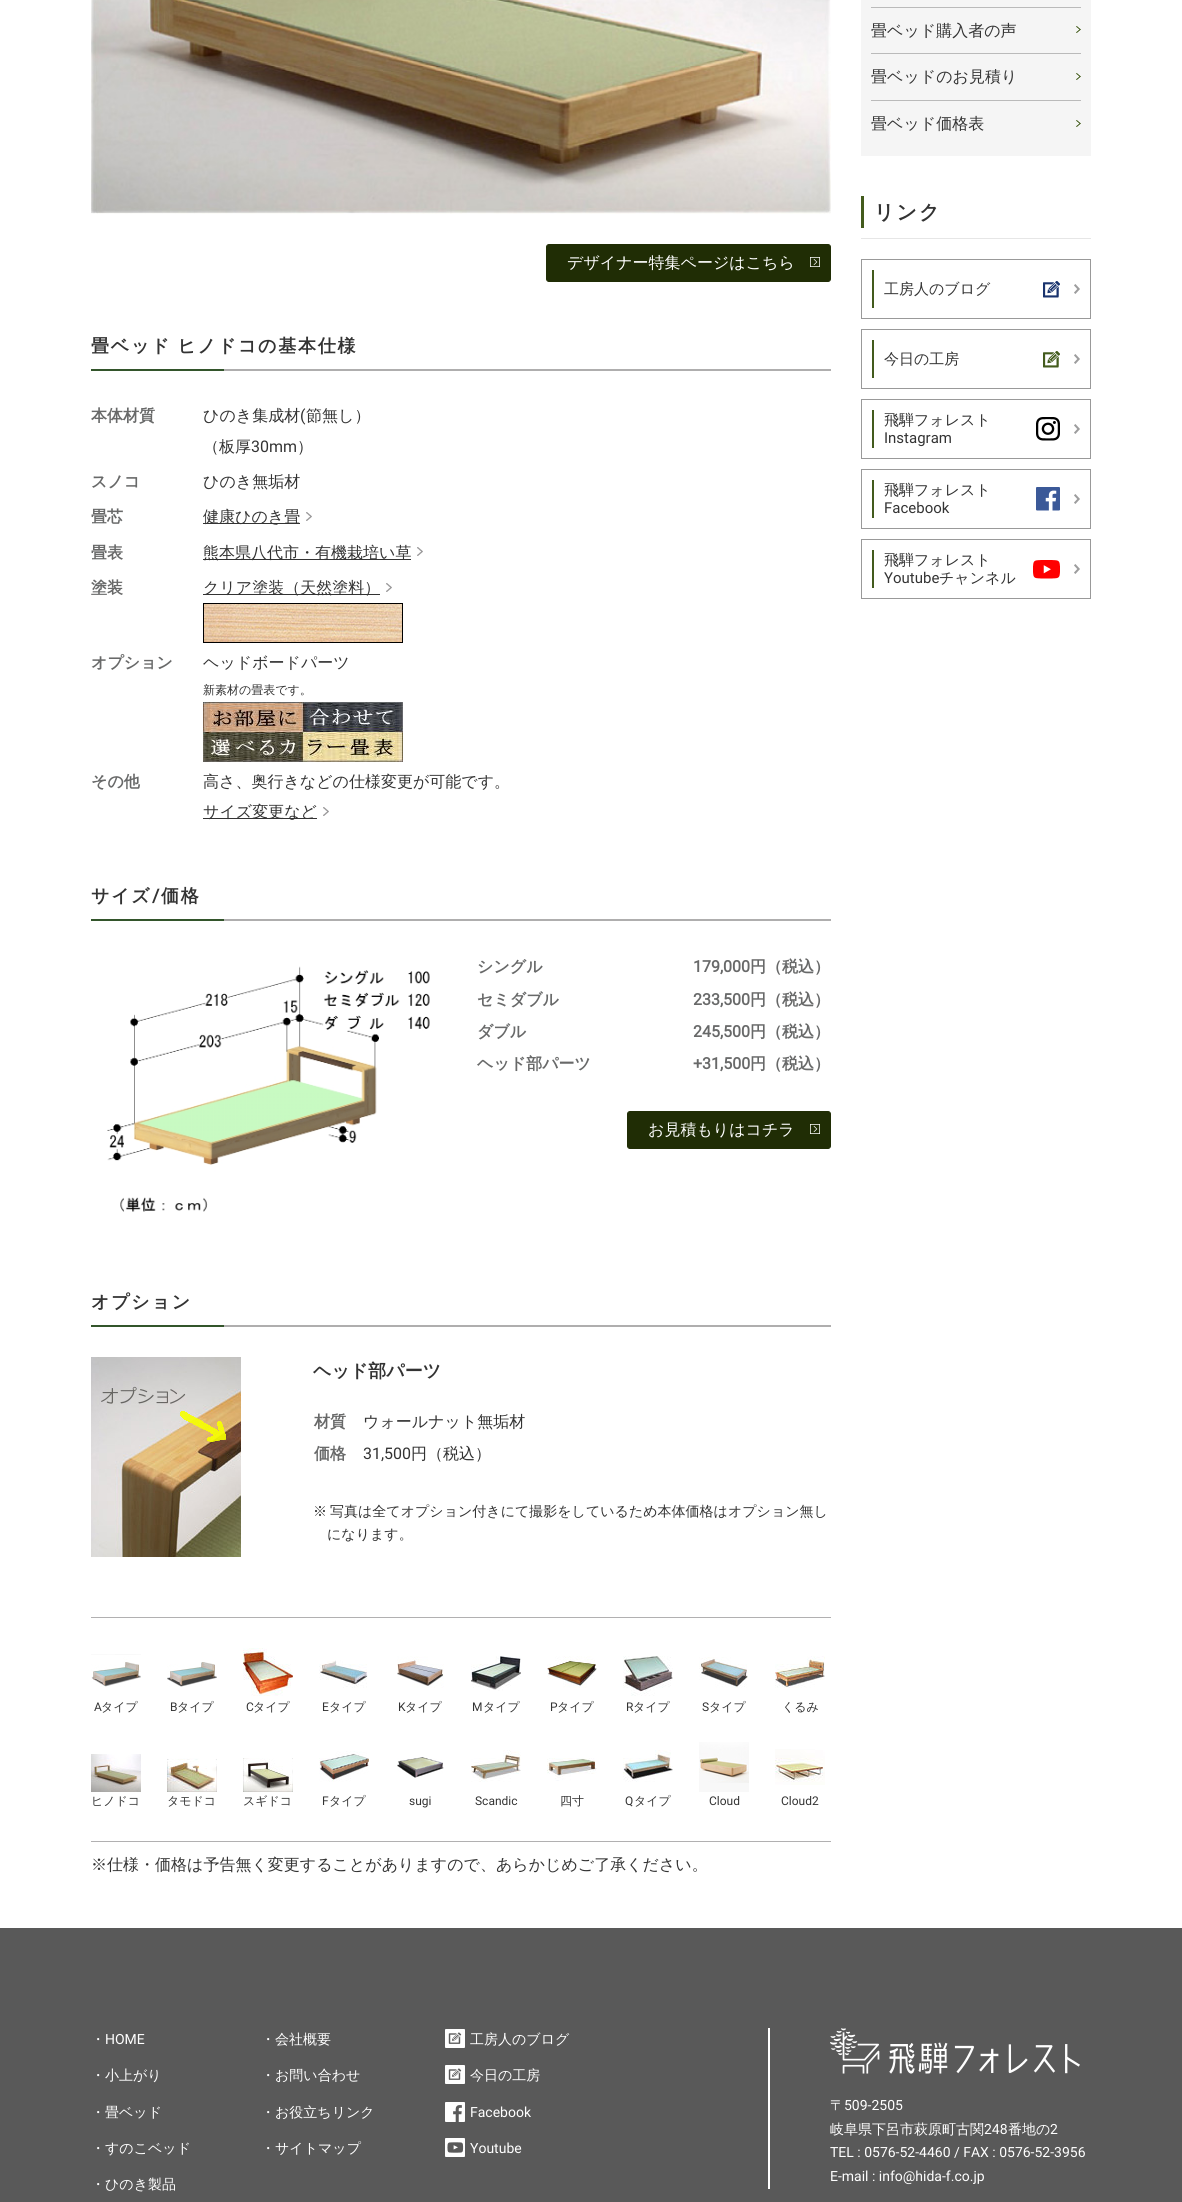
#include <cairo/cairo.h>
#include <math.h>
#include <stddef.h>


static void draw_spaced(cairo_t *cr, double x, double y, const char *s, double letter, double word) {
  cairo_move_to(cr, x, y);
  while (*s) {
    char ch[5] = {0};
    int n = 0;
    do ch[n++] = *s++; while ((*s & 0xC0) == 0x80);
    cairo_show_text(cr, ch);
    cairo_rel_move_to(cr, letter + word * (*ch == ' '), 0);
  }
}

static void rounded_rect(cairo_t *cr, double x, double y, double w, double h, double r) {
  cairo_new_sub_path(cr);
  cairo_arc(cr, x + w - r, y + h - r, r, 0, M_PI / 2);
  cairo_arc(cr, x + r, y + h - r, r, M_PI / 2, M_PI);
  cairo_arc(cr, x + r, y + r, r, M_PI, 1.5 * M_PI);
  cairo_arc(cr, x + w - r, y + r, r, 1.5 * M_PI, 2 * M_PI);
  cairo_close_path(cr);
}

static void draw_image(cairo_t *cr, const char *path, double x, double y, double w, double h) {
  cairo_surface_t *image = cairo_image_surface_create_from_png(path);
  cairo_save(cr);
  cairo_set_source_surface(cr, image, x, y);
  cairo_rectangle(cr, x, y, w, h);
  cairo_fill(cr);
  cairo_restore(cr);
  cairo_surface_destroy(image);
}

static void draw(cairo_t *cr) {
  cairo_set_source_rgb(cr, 1, 1, 1);
  cairo_paint(cr);
  draw_image(cr, "images/1.png", 91, 0, 740, 214);
  cairo_set_source_rgb(cr, 32 / 255.0, 45 / 255.0, 5 / 255.0);
  rounded_rect(cr, 546.5, 244.5, 284, 37, 2.5);
  cairo_fill_preserve(cr);
  cairo_set_line_width(cr, 1);
  cairo_stroke(cr);
  draw_image(cr, "images/2.png", 810, 257, 10, 10);
  cairo_set_source_rgb(cr, 51 / 255.0, 85 / 255.0, 43 / 255.0);
  cairo_rectangle(cr, 91, 369, 133, 2);
  cairo_fill(cr);
  cairo_set_source_rgb(cr, 175 / 255.0, 174 / 255.0, 174 / 255.0);
  cairo_rectangle(cr, 224, 369, 607, 2);
  cairo_fill(cr);
  cairo_set_source_rgb(cr, 51 / 255.0, 51 / 255.0, 51 / 255.0);
  cairo_rectangle(cr, 203, 523, 97, 1);
  cairo_fill(cr);
  draw_image(cr, "images/3.png", 306, 512, 6, 9);
  cairo_rectangle(cr, 203, 559, 208, 1);
  cairo_fill(cr);
  draw_image(cr, "images/3.png", 417, 547, 6, 9);
  cairo_rectangle(cr, 203, 594, 177, 1);
  cairo_fill(cr);
  draw_image(cr, "images/3.png", 386, 583, 6, 9);
  cairo_rectangle(cr, 203.5, 603.5, 199, 39);
  cairo_set_source_rgb(cr, 0, 0, 0);
  cairo_stroke(cr);
  draw_image(cr, "images/4.png", 204, 604, 198, 38);
  draw_image(cr, "images/5.png", 203, 702, 200, 60);
  cairo_set_source_rgb(cr, 51 / 255.0, 51 / 255.0, 51 / 255.0);
  cairo_rectangle(cr, 203, 818, 114, 1);
  cairo_fill(cr);
  draw_image(cr, "images/3.png", 323, 807, 6, 9);
  cairo_set_source_rgb(cr, 51 / 255.0, 85 / 255.0, 43 / 255.0);
  cairo_rectangle(cr, 91, 919, 133, 2);
  cairo_fill(cr);
  cairo_set_source_rgb(cr, 175 / 255.0, 174 / 255.0, 174 / 255.0);
  cairo_rectangle(cr, 224, 919, 607, 2);
  cairo_fill(cr);
  draw_image(cr, "images/6.png", 107, 966, 323, 246);
  cairo_set_source_rgb(cr, 32 / 255.0, 45 / 255.0, 5 / 255.0);
  rounded_rect(cr, 627.5, 1111.5, 203, 37, 2.5);
  cairo_fill_preserve(cr);
  cairo_stroke(cr);
  draw_image(cr, "images/2.png", 810, 1124, 10, 10);
  cairo_set_source_rgb(cr, 51 / 255.0, 85 / 255.0, 43 / 255.0);
  cairo_rectangle(cr, 91, 1325, 133, 2);
  cairo_fill(cr);
  cairo_set_source_rgb(cr, 175 / 255.0, 174 / 255.0, 174 / 255.0);
  cairo_rectangle(cr, 224, 1325, 607, 2);
  cairo_fill(cr);
  draw_image(cr, "images/7.png", 91, 1357, 150, 200);
  cairo_set_source_rgb(cr, 177 / 255.0, 176 / 255.0, 177 / 255.0);
  cairo_rectangle(cr, 91, 1617, 740, 1);
  cairo_fill(cr);
  cairo_rectangle(cr, 91, 1841, 740, 1);
  cairo_fill(cr);
  draw_image(cr, "images/8.png", 91, 1654, 50, 33);
  draw_image(cr, "images/9.png", 167, 1662, 50, 25);
  draw_image(cr, "images/10.png", 243, 1648, 50, 48);
  draw_image(cr, "images/11.png", 319, 1660, 49, 28);
  draw_image(cr, "images/12.png", 397, 1656, 47, 32);
  draw_image(cr, "images/13.png", 471, 1656, 50, 35);
  draw_image(cr, "images/14.png", 547, 1656, 50, 32);
  draw_image(cr, "images/15.png", 623, 1656, 50, 40);
  draw_image(cr, "images/16.png", 699, 1657, 49, 31);
  draw_image(cr, "images/17.png", 775, 1656, 50, 32);
  draw_image(cr, "images/18.png", 91, 1754, 50, 38);
  draw_image(cr, "images/19.png", 167, 1758, 50, 34);
  draw_image(cr, "images/20.png", 243, 1758, 50, 34);
  draw_image(cr, "images/21.png", 319, 1751, 50, 31);
  draw_image(cr, "images/22.png", 397, 1757, 47, 21);
  draw_image(cr, "images/23.png", 471, 1750, 50, 32);
  draw_image(cr, "images/24.png", 547, 1758, 50, 23);
  draw_image(cr, "images/25.png", 623, 1750, 50, 32);
  draw_image(cr, "images/26.png", 699, 1742, 50, 50);
  draw_image(cr, "images/27.png", 775, 1749, 50, 36);
  cairo_set_source_rgb(cr, 245 / 255.0, 245 / 255.0, 245 / 255.0);
  cairo_rectangle(cr, 861, 0, 230, 156);
  cairo_fill(cr);
  cairo_set_source_rgb(cr, 186 / 255.0, 186 / 255.0, 186 / 255.0);
  cairo_rectangle(cr, 871, 7, 210, 1);
  cairo_fill(cr);
  cairo_rectangle(cr, 871, 53, 210, 1);
  cairo_fill(cr);
  draw_image(cr, "images/28.png", 1076, 26, 5, 7);
  cairo_rectangle(cr, 871, 100, 210, 1);
  cairo_fill(cr);
  draw_image(cr, "images/28.png", 1076, 73, 5, 7);
  draw_image(cr, "images/28.png", 1076, 120, 5, 7);
  cairo_set_source_rgb(cr, 230 / 255.0, 230 / 255.0, 230 / 255.0);
  cairo_rectangle(cr, 861, 238, 230, 1);
  cairo_fill(cr);
  cairo_set_source_rgb(cr, 67 / 255.0, 91 / 255.0, 29 / 255.0);
  cairo_rectangle(cr, 861, 196, 3, 32);
  cairo_fill(cr);
  cairo_rectangle(cr, 861.5, 259.5, 229, 59);
  cairo_set_source_rgb(cr, 153 / 255.0, 153 / 255.0, 153 / 255.0);
  cairo_stroke(cr);
  draw_image(cr, "images/29.png", 1074, 284, 6, 10);
  cairo_set_source_rgb(cr, 67 / 255.0, 91 / 255.0, 29 / 255.0);
  cairo_rectangle(cr, 872, 270, 2, 38);
  cairo_fill(cr);
  draw_image(cr, "images/30.png", 1043, 281, 17, 17);
  cairo_rectangle(cr, 861.5, 329.5, 229, 59);
  cairo_set_source_rgb(cr, 153 / 255.0, 153 / 255.0, 153 / 255.0);
  cairo_stroke(cr);
  draw_image(cr, "images/29.png", 1074, 354, 6, 10);
  cairo_set_source_rgb(cr, 67 / 255.0, 91 / 255.0, 29 / 255.0);
  cairo_rectangle(cr, 872, 340, 2, 38);
  cairo_fill(cr);
  draw_image(cr, "images/31.png", 1043, 351, 17, 17);
  cairo_rectangle(cr, 861.5, 399.5, 229, 59);
  cairo_set_source_rgb(cr, 153 / 255.0, 153 / 255.0, 153 / 255.0);
  cairo_stroke(cr);
  draw_image(cr, "images/29.png", 1074, 424, 6, 10);
  cairo_set_source_rgb(cr, 67 / 255.0, 91 / 255.0, 29 / 255.0);
  cairo_rectangle(cr, 872, 410, 2, 38);
  cairo_fill(cr);
  draw_image(cr, "images/32.png", 1036, 417, 24, 24);
  cairo_rectangle(cr, 861.5, 469.5, 229, 59);
  cairo_set_source_rgb(cr, 153 / 255.0, 153 / 255.0, 153 / 255.0);
  cairo_stroke(cr);
  draw_image(cr, "images/29.png", 1074, 494, 6, 10);
  cairo_set_source_rgb(cr, 67 / 255.0, 91 / 255.0, 29 / 255.0);
  cairo_rectangle(cr, 872, 480, 2, 38);
  cairo_fill(cr);
  draw_image(cr, "images/33.png", 1036, 487, 24, 24);
  cairo_rectangle(cr, 861.5, 539.5, 229, 59);
  cairo_set_source_rgb(cr, 153 / 255.0, 153 / 255.0, 153 / 255.0);
  cairo_stroke(cr);
  draw_image(cr, "images/29.png", 1074, 564, 6, 10);
  cairo_set_source_rgb(cr, 67 / 255.0, 91 / 255.0, 29 / 255.0);
  cairo_rectangle(cr, 872, 550, 2, 38);
  cairo_fill(cr);
  draw_image(cr, "images/34.png", 1033, 560, 27, 19);
  cairo_set_source_rgb(cr, 89 / 255.0, 89 / 255.0, 89 / 255.0);
  cairo_rectangle(cr, 0, 1928, 1182, 274);
  cairo_fill(cr);
  draw_image(cr, "images/35.png", 445, 2029, 20, 19);
  draw_image(cr, "images/35.png", 445, 2065, 20, 19);
  draw_image(cr, "images/36.png", 445, 2102, 20, 20);
  draw_image(cr, "images/37.png", 445, 2138, 20, 19);
  cairo_set_source_rgb(cr, 1, 1, 1);
  cairo_rectangle(cr, 768, 2028, 2, 161);
  cairo_fill(cr);
  draw_image(cr, "images/38.png", 830, 2028, 250, 46);
  cairo_select_font_face(cr, "WenQuanYi Zen Hei Medium", CAIRO_FONT_SLANT_NORMAL, CAIRO_FONT_WEIGHT_NORMAL);
  cairo_set_font_size(cr, 16);
  cairo_move_to(cr, 567, 268);
  cairo_show_text(cr, "デザイナー特集ページはこちら");
  cairo_select_font_face(cr, "WenQuanYi Zen Hei", CAIRO_FONT_SLANT_NORMAL, CAIRO_FONT_WEIGHT_BOLD);
  cairo_set_font_size(cr, 18);
  cairo_set_source_rgb(cr, 51 / 255.0, 51 / 255.0, 51 / 255.0);
  draw_spaced(cr, 91, 352, "畳ベッド ヒノドコの基本仕様", 1.75, -1);
  cairo_set_font_size(cr, 16);
  cairo_set_source_rgb(cr, 104 / 255.0, 105 / 255.0, 105 / 255.0);
  cairo_move_to(cr, 91, 421);
  cairo_show_text(cr, "本体材質");
  cairo_select_font_face(cr, "WenQuanYi Zen Hei Medium", CAIRO_FONT_SLANT_NORMAL, CAIRO_FONT_WEIGHT_NORMAL);
  cairo_set_source_rgb(cr, 51 / 255.0, 51 / 255.0, 51 / 255.0);
  cairo_move_to(cr, 203, 421);
  cairo_show_text(cr, "ひのき集成材");
  cairo_select_font_face(cr, "Roboto", CAIRO_FONT_SLANT_NORMAL, CAIRO_FONT_WEIGHT_NORMAL);
  cairo_move_to(cr, 300, 421);
  cairo_show_text(cr, "(");
  cairo_select_font_face(cr, "WenQuanYi Zen Hei Medium", CAIRO_FONT_SLANT_NORMAL, CAIRO_FONT_WEIGHT_NORMAL);
  cairo_move_to(cr, 306, 421);
  cairo_show_text(cr, "節無し）");
  cairo_move_to(cr, 203, 452);
  cairo_show_text(cr, "（板厚");
  cairo_select_font_face(cr, "Roboto", CAIRO_FONT_SLANT_NORMAL, CAIRO_FONT_WEIGHT_NORMAL);
  cairo_move_to(cr, 251, 452);
  cairo_show_text(cr, "30mm");
  cairo_select_font_face(cr, "WenQuanYi Zen Hei Medium", CAIRO_FONT_SLANT_NORMAL, CAIRO_FONT_WEIGHT_NORMAL);
  cairo_move_to(cr, 297, 452);
  cairo_show_text(cr, "）");
  cairo_select_font_face(cr, "WenQuanYi Zen Hei", CAIRO_FONT_SLANT_NORMAL, CAIRO_FONT_WEIGHT_BOLD);
  cairo_set_source_rgb(cr, 104 / 255.0, 105 / 255.0, 105 / 255.0);
  cairo_move_to(cr, 91, 487);
  cairo_show_text(cr, "スノコ");
  cairo_select_font_face(cr, "WenQuanYi Zen Hei Medium", CAIRO_FONT_SLANT_NORMAL, CAIRO_FONT_WEIGHT_NORMAL);
  cairo_set_source_rgb(cr, 51 / 255.0, 51 / 255.0, 51 / 255.0);
  cairo_move_to(cr, 203, 487);
  cairo_show_text(cr, "ひのき無垢材");
  cairo_select_font_face(cr, "WenQuanYi Zen Hei", CAIRO_FONT_SLANT_NORMAL, CAIRO_FONT_WEIGHT_BOLD);
  cairo_set_source_rgb(cr, 104 / 255.0, 105 / 255.0, 105 / 255.0);
  cairo_move_to(cr, 91, 522);
  cairo_show_text(cr, "畳芯");
  cairo_select_font_face(cr, "WenQuanYi Zen Hei Medium", CAIRO_FONT_SLANT_NORMAL, CAIRO_FONT_WEIGHT_NORMAL);
  cairo_set_source_rgb(cr, 51 / 255.0, 51 / 255.0, 51 / 255.0);
  cairo_move_to(cr, 203, 522);
  cairo_show_text(cr, "健康ひのき畳");
  cairo_select_font_face(cr, "WenQuanYi Zen Hei", CAIRO_FONT_SLANT_NORMAL, CAIRO_FONT_WEIGHT_BOLD);
  cairo_set_source_rgb(cr, 104 / 255.0, 105 / 255.0, 105 / 255.0);
  cairo_move_to(cr, 91, 558);
  cairo_show_text(cr, "畳表");
  cairo_select_font_face(cr, "WenQuanYi Zen Hei Medium", CAIRO_FONT_SLANT_NORMAL, CAIRO_FONT_WEIGHT_NORMAL);
  cairo_set_source_rgb(cr, 51 / 255.0, 51 / 255.0, 51 / 255.0);
  cairo_move_to(cr, 203, 558);
  cairo_show_text(cr, "熊本県八代市・有機栽培い草");
  cairo_select_font_face(cr, "WenQuanYi Zen Hei", CAIRO_FONT_SLANT_NORMAL, CAIRO_FONT_WEIGHT_BOLD);
  cairo_set_source_rgb(cr, 104 / 255.0, 105 / 255.0, 105 / 255.0);
  cairo_move_to(cr, 91, 593);
  cairo_show_text(cr, "塗装");
  cairo_select_font_face(cr, "WenQuanYi Zen Hei Medium", CAIRO_FONT_SLANT_NORMAL, CAIRO_FONT_WEIGHT_NORMAL);
  cairo_set_source_rgb(cr, 51 / 255.0, 51 / 255.0, 51 / 255.0);
  cairo_move_to(cr, 203, 593);
  cairo_show_text(cr, "クリア塗装（天然塗料）");
  cairo_select_font_face(cr, "WenQuanYi Zen Hei", CAIRO_FONT_SLANT_NORMAL, CAIRO_FONT_WEIGHT_BOLD);
  cairo_set_source_rgb(cr, 104 / 255.0, 105 / 255.0, 105 / 255.0);
  cairo_move_to(cr, 91, 668);
  cairo_show_text(cr, "オプション");
  cairo_select_font_face(cr, "WenQuanYi Zen Hei Medium", CAIRO_FONT_SLANT_NORMAL, CAIRO_FONT_WEIGHT_NORMAL);
  cairo_set_source_rgb(cr, 51 / 255.0, 51 / 255.0, 51 / 255.0);
  cairo_move_to(cr, 203, 668);
  cairo_show_text(cr, "ヘッドボードパーツ");
  cairo_set_font_size(cr, 12);
  cairo_move_to(cr, 203, 694);
  cairo_show_text(cr, "新素材の畳表です。");
  cairo_select_font_face(cr, "WenQuanYi Zen Hei", CAIRO_FONT_SLANT_NORMAL, CAIRO_FONT_WEIGHT_BOLD);
  cairo_set_font_size(cr, 16);
  cairo_set_source_rgb(cr, 104 / 255.0, 105 / 255.0, 105 / 255.0);
  cairo_move_to(cr, 91, 787);
  cairo_show_text(cr, "その他");
  cairo_select_font_face(cr, "WenQuanYi Zen Hei Medium", CAIRO_FONT_SLANT_NORMAL, CAIRO_FONT_WEIGHT_NORMAL);
  cairo_set_source_rgb(cr, 51 / 255.0, 51 / 255.0, 51 / 255.0);
  cairo_move_to(cr, 203, 787);
  cairo_show_text(cr, "高さ、奥行きなどの仕様変更が可能です。");
  cairo_move_to(cr, 203, 817);
  cairo_show_text(cr, "サイズ変更など");
  cairo_select_font_face(cr, "WenQuanYi Zen Hei", CAIRO_FONT_SLANT_NORMAL, CAIRO_FONT_WEIGHT_BOLD);
  cairo_set_font_size(cr, 18);
  draw_spaced(cr, 91, 902, "サイズ", 1.75, 0);
  cairo_select_font_face(cr, "Roboto", CAIRO_FONT_SLANT_NORMAL, CAIRO_FONT_WEIGHT_BOLD);
  draw_spaced(cr, 152, 902, "/", 1.75, 0);
  cairo_select_font_face(cr, "WenQuanYi Zen Hei", CAIRO_FONT_SLANT_NORMAL, CAIRO_FONT_WEIGHT_BOLD);
  draw_spaced(cr, 161, 902, "価格", 1.75, 0);
  cairo_set_font_size(cr, 16);
  cairo_set_source_rgb(cr, 104 / 255.0, 105 / 255.0, 105 / 255.0);
  cairo_move_to(cr, 477, 972);
  cairo_show_text(cr, "シングル");
  cairo_select_font_face(cr, "Roboto", CAIRO_FONT_SLANT_NORMAL, CAIRO_FONT_WEIGHT_BOLD);
  cairo_move_to(cr, 693, 972);
  cairo_show_text(cr, "179,000");
  cairo_select_font_face(cr, "WenQuanYi Zen Hei", CAIRO_FONT_SLANT_NORMAL, CAIRO_FONT_WEIGHT_BOLD);
  cairo_move_to(cr, 750, 972);
  cairo_show_text(cr, "円（税込）");
  cairo_move_to(cr, 477, 1005);
  cairo_show_text(cr, "セミダブル");
  cairo_select_font_face(cr, "Roboto", CAIRO_FONT_SLANT_NORMAL, CAIRO_FONT_WEIGHT_BOLD);
  cairo_move_to(cr, 693, 1005);
  cairo_show_text(cr, "233,500");
  cairo_select_font_face(cr, "WenQuanYi Zen Hei", CAIRO_FONT_SLANT_NORMAL, CAIRO_FONT_WEIGHT_BOLD);
  cairo_move_to(cr, 750, 1005);
  cairo_show_text(cr, "円（税込）");
  cairo_move_to(cr, 477, 1037);
  cairo_show_text(cr, "ダブル");
  cairo_select_font_face(cr, "Roboto", CAIRO_FONT_SLANT_NORMAL, CAIRO_FONT_WEIGHT_BOLD);
  cairo_move_to(cr, 693, 1037);
  cairo_show_text(cr, "245,500");
  cairo_select_font_face(cr, "WenQuanYi Zen Hei", CAIRO_FONT_SLANT_NORMAL, CAIRO_FONT_WEIGHT_BOLD);
  cairo_move_to(cr, 750, 1037);
  cairo_show_text(cr, "円（税込）");
  cairo_move_to(cr, 477, 1069);
  cairo_show_text(cr, "ヘッド部パーツ");
  cairo_select_font_face(cr, "Roboto", CAIRO_FONT_SLANT_NORMAL, CAIRO_FONT_WEIGHT_BOLD);
  cairo_move_to(cr, 693, 1069);
  cairo_show_text(cr, "+31,500");
  cairo_select_font_face(cr, "WenQuanYi Zen Hei", CAIRO_FONT_SLANT_NORMAL, CAIRO_FONT_WEIGHT_BOLD);
  cairo_move_to(cr, 750, 1069);
  cairo_show_text(cr, "円（税込）");
  cairo_select_font_face(cr, "WenQuanYi Zen Hei Medium", CAIRO_FONT_SLANT_NORMAL, CAIRO_FONT_WEIGHT_NORMAL);
  cairo_set_source_rgb(cr, 1, 1, 1);
  cairo_move_to(cr, 648, 1135);
  cairo_show_text(cr, "お見積もりはコチラ");
  cairo_select_font_face(cr, "WenQuanYi Zen Hei", CAIRO_FONT_SLANT_NORMAL, CAIRO_FONT_WEIGHT_BOLD);
  cairo_set_font_size(cr, 18);
  cairo_set_source_rgb(cr, 51 / 255.0, 51 / 255.0, 51 / 255.0);
  draw_spaced(cr, 91, 1308, "オプション", 1.75, 0);
  cairo_move_to(cr, 313, 1377);
  cairo_show_text(cr, "ヘッド部パーツ");
  cairo_set_font_size(cr, 16);
  cairo_set_source_rgb(cr, 104 / 255.0, 105 / 255.0, 105 / 255.0);
  cairo_move_to(cr, 314, 1427);
  cairo_show_text(cr, "材質");
  cairo_select_font_face(cr, "WenQuanYi Zen Hei Medium", CAIRO_FONT_SLANT_NORMAL, CAIRO_FONT_WEIGHT_NORMAL);
  cairo_set_source_rgb(cr, 51 / 255.0, 51 / 255.0, 51 / 255.0);
  cairo_move_to(cr, 363, 1427);
  cairo_show_text(cr, "ウォールナット無垢材");
  cairo_select_font_face(cr, "WenQuanYi Zen Hei", CAIRO_FONT_SLANT_NORMAL, CAIRO_FONT_WEIGHT_BOLD);
  cairo_set_source_rgb(cr, 104 / 255.0, 105 / 255.0, 105 / 255.0);
  cairo_move_to(cr, 314, 1459);
  cairo_show_text(cr, "価格");
  cairo_select_font_face(cr, "Roboto", CAIRO_FONT_SLANT_NORMAL, CAIRO_FONT_WEIGHT_NORMAL);
  cairo_set_source_rgb(cr, 51 / 255.0, 51 / 255.0, 51 / 255.0);
  cairo_move_to(cr, 363, 1459);
  cairo_show_text(cr, "31,500");
  cairo_select_font_face(cr, "WenQuanYi Zen Hei Medium", CAIRO_FONT_SLANT_NORMAL, CAIRO_FONT_WEIGHT_NORMAL);
  cairo_move_to(cr, 411, 1459);
  cairo_show_text(cr, "円（税込）");
  cairo_set_font_size(cr, 14);
  cairo_move_to(cr, 313, 1516);
  cairo_show_text(cr, "※");
  cairo_move_to(cr, 330, 1516);
  cairo_show_text(cr, "写真は全てオプション付きにて撮影をしているため本体価格はオプション無し");
  cairo_move_to(cr, 327, 1539);
  cairo_show_text(cr, "になります。");
  cairo_select_font_face(cr, "Roboto", CAIRO_FONT_SLANT_NORMAL, CAIRO_FONT_WEIGHT_NORMAL);
  cairo_set_font_size(cr, 12);
  cairo_move_to(cr, 94, 1711);
  cairo_show_text(cr, "A");
  cairo_select_font_face(cr, "WenQuanYi Zen Hei Medium", CAIRO_FONT_SLANT_NORMAL, CAIRO_FONT_WEIGHT_NORMAL);
  cairo_move_to(cr, 101, 1711);
  cairo_show_text(cr, "タイプ");
  cairo_select_font_face(cr, "Roboto", CAIRO_FONT_SLANT_NORMAL, CAIRO_FONT_WEIGHT_NORMAL);
  cairo_move_to(cr, 170, 1711);
  cairo_show_text(cr, "B");
  cairo_select_font_face(cr, "WenQuanYi Zen Hei Medium", CAIRO_FONT_SLANT_NORMAL, CAIRO_FONT_WEIGHT_NORMAL);
  cairo_move_to(cr, 177, 1711);
  cairo_show_text(cr, "タイプ");
  cairo_select_font_face(cr, "Roboto", CAIRO_FONT_SLANT_NORMAL, CAIRO_FONT_WEIGHT_NORMAL);
  cairo_move_to(cr, 246, 1711);
  cairo_show_text(cr, "C");
  cairo_select_font_face(cr, "WenQuanYi Zen Hei Medium", CAIRO_FONT_SLANT_NORMAL, CAIRO_FONT_WEIGHT_NORMAL);
  cairo_move_to(cr, 253, 1711);
  cairo_show_text(cr, "タイプ");
  cairo_select_font_face(cr, "Roboto", CAIRO_FONT_SLANT_NORMAL, CAIRO_FONT_WEIGHT_NORMAL);
  cairo_move_to(cr, 322, 1711);
  cairo_show_text(cr, "E");
  cairo_select_font_face(cr, "WenQuanYi Zen Hei Medium", CAIRO_FONT_SLANT_NORMAL, CAIRO_FONT_WEIGHT_NORMAL);
  cairo_move_to(cr, 329, 1711);
  cairo_show_text(cr, "タイプ");
  cairo_select_font_face(cr, "Roboto", CAIRO_FONT_SLANT_NORMAL, CAIRO_FONT_WEIGHT_NORMAL);
  cairo_move_to(cr, 398, 1711);
  cairo_show_text(cr, "K");
  cairo_select_font_face(cr, "WenQuanYi Zen Hei Medium", CAIRO_FONT_SLANT_NORMAL, CAIRO_FONT_WEIGHT_NORMAL);
  cairo_move_to(cr, 405, 1711);
  cairo_show_text(cr, "タイプ");
  cairo_select_font_face(cr, "Roboto", CAIRO_FONT_SLANT_NORMAL, CAIRO_FONT_WEIGHT_NORMAL);
  cairo_move_to(cr, 472, 1711);
  cairo_show_text(cr, "M");
  cairo_select_font_face(cr, "WenQuanYi Zen Hei Medium", CAIRO_FONT_SLANT_NORMAL, CAIRO_FONT_WEIGHT_NORMAL);
  cairo_move_to(cr, 483, 1711);
  cairo_show_text(cr, "タイプ");
  cairo_select_font_face(cr, "Roboto", CAIRO_FONT_SLANT_NORMAL, CAIRO_FONT_WEIGHT_NORMAL);
  cairo_move_to(cr, 550, 1711);
  cairo_show_text(cr, "P");
  cairo_select_font_face(cr, "WenQuanYi Zen Hei Medium", CAIRO_FONT_SLANT_NORMAL, CAIRO_FONT_WEIGHT_NORMAL);
  cairo_move_to(cr, 557, 1711);
  cairo_show_text(cr, "タイプ");
  cairo_select_font_face(cr, "Roboto", CAIRO_FONT_SLANT_NORMAL, CAIRO_FONT_WEIGHT_NORMAL);
  cairo_move_to(cr, 626, 1711);
  cairo_show_text(cr, "R");
  cairo_select_font_face(cr, "WenQuanYi Zen Hei Medium", CAIRO_FONT_SLANT_NORMAL, CAIRO_FONT_WEIGHT_NORMAL);
  cairo_move_to(cr, 633, 1711);
  cairo_show_text(cr, "タイプ");
  cairo_select_font_face(cr, "Roboto", CAIRO_FONT_SLANT_NORMAL, CAIRO_FONT_WEIGHT_NORMAL);
  cairo_move_to(cr, 702, 1711);
  cairo_show_text(cr, "S");
  cairo_select_font_face(cr, "WenQuanYi Zen Hei Medium", CAIRO_FONT_SLANT_NORMAL, CAIRO_FONT_WEIGHT_NORMAL);
  cairo_move_to(cr, 709, 1711);
  cairo_show_text(cr, "タイプ");
  cairo_move_to(cr, 782, 1711);
  cairo_show_text(cr, "くるみ");
  cairo_move_to(cr, 91, 1805);
  cairo_show_text(cr, "ヒノドコ");
  cairo_move_to(cr, 167, 1805);
  cairo_show_text(cr, "タモドコ");
  cairo_move_to(cr, 243, 1805);
  cairo_show_text(cr, "スギドコ");
  cairo_select_font_face(cr, "Roboto", CAIRO_FONT_SLANT_NORMAL, CAIRO_FONT_WEIGHT_NORMAL);
  cairo_move_to(cr, 322, 1805);
  cairo_show_text(cr, "F");
  cairo_select_font_face(cr, "WenQuanYi Zen Hei Medium", CAIRO_FONT_SLANT_NORMAL, CAIRO_FONT_WEIGHT_NORMAL);
  cairo_move_to(cr, 329, 1805);
  cairo_show_text(cr, "タイプ");
  cairo_select_font_face(cr, "Roboto", CAIRO_FONT_SLANT_NORMAL, CAIRO_FONT_WEIGHT_NORMAL);
  cairo_move_to(cr, 409, 1805);
  cairo_show_text(cr, "sugi");
  cairo_move_to(cr, 475, 1805);
  cairo_show_text(cr, "Scandic");
  cairo_select_font_face(cr, "WenQuanYi Zen Hei Medium", CAIRO_FONT_SLANT_NORMAL, CAIRO_FONT_WEIGHT_NORMAL);
  cairo_move_to(cr, 560, 1805);
  cairo_show_text(cr, "四寸");
  cairo_select_font_face(cr, "Roboto", CAIRO_FONT_SLANT_NORMAL, CAIRO_FONT_WEIGHT_NORMAL);
  cairo_move_to(cr, 625, 1805);
  cairo_show_text(cr, "Q");
  cairo_select_font_face(cr, "WenQuanYi Zen Hei Medium", CAIRO_FONT_SLANT_NORMAL, CAIRO_FONT_WEIGHT_NORMAL);
  cairo_move_to(cr, 634, 1805);
  cairo_show_text(cr, "タイプ");
  cairo_select_font_face(cr, "Roboto", CAIRO_FONT_SLANT_NORMAL, CAIRO_FONT_WEIGHT_NORMAL);
  cairo_move_to(cr, 709, 1805);
  cairo_show_text(cr, "Cloud");
  cairo_move_to(cr, 781, 1805);
  cairo_show_text(cr, "Cloud2");
  cairo_select_font_face(cr, "WenQuanYi Zen Hei Medium", CAIRO_FONT_SLANT_NORMAL, CAIRO_FONT_WEIGHT_NORMAL);
  cairo_set_font_size(cr, 16);
  cairo_move_to(cr, 91, 1870);
  cairo_show_text(cr, "※仕様・価格は予告無く変更することがありますので、あらかじめご了承ください。");
  cairo_move_to(cr, 871, 36);
  cairo_show_text(cr, "畳ベッド購入者の声");
  cairo_move_to(cr, 871, 82);
  cairo_show_text(cr, "畳ベッドのお見積り");
  cairo_move_to(cr, 871, 129);
  cairo_show_text(cr, "畳ベッド価格表");
  cairo_select_font_face(cr, "WenQuanYi Zen Hei", CAIRO_FONT_SLANT_NORMAL, CAIRO_FONT_WEIGHT_BOLD);
  cairo_set_font_size(cr, 20);
  draw_spaced(cr, 874, 219, "リンク", 2, 0);
  cairo_select_font_face(cr, "WenQuanYi Zen Hei Medium", CAIRO_FONT_SLANT_NORMAL, CAIRO_FONT_WEIGHT_NORMAL);
  cairo_set_font_size(cr, 15);
  cairo_move_to(cr, 884, 294);
  cairo_show_text(cr, "工房人のブログ");
  cairo_move_to(cr, 884, 364);
  cairo_show_text(cr, "今日の工房");
  cairo_move_to(cr, 884, 425);
  cairo_show_text(cr, "飛騨フォレスト");
  cairo_select_font_face(cr, "Roboto", CAIRO_FONT_SLANT_NORMAL, CAIRO_FONT_WEIGHT_NORMAL);
  cairo_move_to(cr, 884, 443);
  cairo_show_text(cr, "Instagram");
  cairo_select_font_face(cr, "WenQuanYi Zen Hei Medium", CAIRO_FONT_SLANT_NORMAL, CAIRO_FONT_WEIGHT_NORMAL);
  cairo_move_to(cr, 884, 495);
  cairo_show_text(cr, "飛騨フォレスト");
  cairo_select_font_face(cr, "Roboto", CAIRO_FONT_SLANT_NORMAL, CAIRO_FONT_WEIGHT_NORMAL);
  cairo_move_to(cr, 884, 513);
  cairo_show_text(cr, "Facebook");
  cairo_select_font_face(cr, "WenQuanYi Zen Hei Medium", CAIRO_FONT_SLANT_NORMAL, CAIRO_FONT_WEIGHT_NORMAL);
  cairo_move_to(cr, 884, 565);
  cairo_show_text(cr, "飛騨フォレスト");
  cairo_select_font_face(cr, "Roboto", CAIRO_FONT_SLANT_NORMAL, CAIRO_FONT_WEIGHT_NORMAL);
  cairo_move_to(cr, 884, 583);
  cairo_show_text(cr, "Youtube");
  cairo_select_font_face(cr, "WenQuanYi Zen Hei Medium", CAIRO_FONT_SLANT_NORMAL, CAIRO_FONT_WEIGHT_NORMAL);
  cairo_move_to(cr, 939, 583);
  cairo_show_text(cr, "チャンネル");
  cairo_set_font_size(cr, 14);
  cairo_set_source_rgb(cr, 1, 1, 1);
  cairo_move_to(cr, 91, 2044);
  cairo_show_text(cr, "・");
  cairo_select_font_face(cr, "Roboto", CAIRO_FONT_SLANT_NORMAL, CAIRO_FONT_WEIGHT_NORMAL);
  cairo_move_to(cr, 105, 2044);
  cairo_show_text(cr, "HOME");
  cairo_select_font_face(cr, "WenQuanYi Zen Hei Medium", CAIRO_FONT_SLANT_NORMAL, CAIRO_FONT_WEIGHT_NORMAL);
  cairo_move_to(cr, 91, 2080);
  cairo_show_text(cr, "・小上がり");
  cairo_move_to(cr, 91, 2117);
  cairo_show_text(cr, "・畳ベッド");
  cairo_move_to(cr, 91, 2153);
  cairo_show_text(cr, "・すのこベッド");
  cairo_move_to(cr, 91, 2189);
  cairo_show_text(cr, "・ひのき製品");
  cairo_move_to(cr, 261, 2044);
  cairo_show_text(cr, "・会社概要");
  cairo_move_to(cr, 261, 2080);
  cairo_show_text(cr, "・お問い合わせ");
  cairo_move_to(cr, 261, 2117);
  cairo_show_text(cr, "・お役立ちリンク");
  cairo_move_to(cr, 261, 2153);
  cairo_show_text(cr, "・サイトマップ");
  cairo_move_to(cr, 470, 2044);
  cairo_show_text(cr, "工房人のブログ");
  cairo_move_to(cr, 470, 2080);
  cairo_show_text(cr, "今日の工房");
  cairo_select_font_face(cr, "Roboto", CAIRO_FONT_SLANT_NORMAL, CAIRO_FONT_WEIGHT_NORMAL);
  cairo_move_to(cr, 470, 2117);
  cairo_show_text(cr, "Facebook");
  cairo_move_to(cr, 470, 2153);
  cairo_show_text(cr, "Youtube");
  cairo_select_font_face(cr, "WenQuanYi Zen Hei Medium", CAIRO_FONT_SLANT_NORMAL, CAIRO_FONT_WEIGHT_NORMAL);
  cairo_move_to(cr, 830, 2110);
  cairo_show_text(cr, "〒");
  cairo_select_font_face(cr, "Roboto", CAIRO_FONT_SLANT_NORMAL, CAIRO_FONT_WEIGHT_NORMAL);
  cairo_move_to(cr, 844, 2110);
  cairo_show_text(cr, "509-2505");
  cairo_select_font_face(cr, "WenQuanYi Zen Hei Medium", CAIRO_FONT_SLANT_NORMAL, CAIRO_FONT_WEIGHT_NORMAL);
  cairo_move_to(cr, 830, 2134);
  cairo_show_text(cr, "岐阜県下呂市萩原町古関");
  cairo_select_font_face(cr, "Roboto", CAIRO_FONT_SLANT_NORMAL, CAIRO_FONT_WEIGHT_NORMAL);
  cairo_move_to(cr, 984, 2134);
  cairo_show_text(cr, "248");
  cairo_select_font_face(cr, "WenQuanYi Zen Hei Medium", CAIRO_FONT_SLANT_NORMAL, CAIRO_FONT_WEIGHT_NORMAL);
  cairo_move_to(cr, 1008, 2134);
  cairo_show_text(cr, "番地の");
  cairo_select_font_face(cr, "Roboto", CAIRO_FONT_SLANT_NORMAL, CAIRO_FONT_WEIGHT_NORMAL);
  cairo_move_to(cr, 1050, 2134);
  cairo_show_text(cr, "2");
  cairo_move_to(cr, 830, 2157);
  cairo_show_text(cr, "TEL : 0576-52-4460 / FAX : 0576-52-3956");
  cairo_move_to(cr, 830, 2181);
  cairo_show_text(cr, "E-mail : info@hida-f.co.jp");
}

int main(void) {
  cairo_surface_t *surface = cairo_image_surface_create(CAIRO_FORMAT_RGB24, 1182, 2202);
  cairo_t *cr = cairo_create(surface);
  cairo_font_options_t *options = cairo_font_options_create();
  cairo_font_options_set_hint_metrics(options, CAIRO_HINT_METRICS_OFF);
  cairo_font_options_set_hint_style(options, CAIRO_HINT_STYLE_NONE);
  cairo_set_font_options(cr, options);
  cairo_set_miter_limit(cr, 4);
  draw(cr);
  cairo_surface_write_to_png(surface, "out.png");
  cairo_font_options_destroy(options);
  cairo_destroy(cr);
  cairo_surface_destroy(surface);
  return 0;
}
